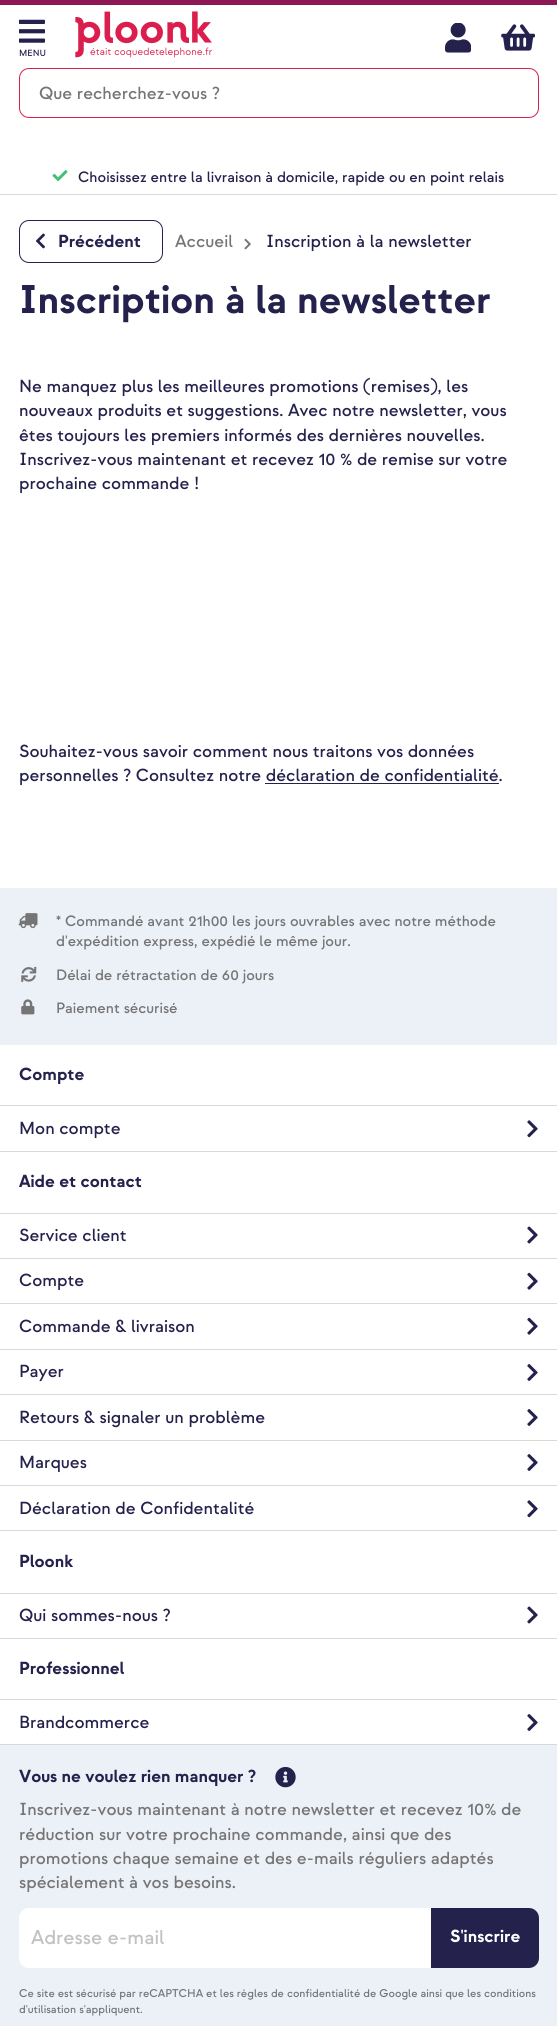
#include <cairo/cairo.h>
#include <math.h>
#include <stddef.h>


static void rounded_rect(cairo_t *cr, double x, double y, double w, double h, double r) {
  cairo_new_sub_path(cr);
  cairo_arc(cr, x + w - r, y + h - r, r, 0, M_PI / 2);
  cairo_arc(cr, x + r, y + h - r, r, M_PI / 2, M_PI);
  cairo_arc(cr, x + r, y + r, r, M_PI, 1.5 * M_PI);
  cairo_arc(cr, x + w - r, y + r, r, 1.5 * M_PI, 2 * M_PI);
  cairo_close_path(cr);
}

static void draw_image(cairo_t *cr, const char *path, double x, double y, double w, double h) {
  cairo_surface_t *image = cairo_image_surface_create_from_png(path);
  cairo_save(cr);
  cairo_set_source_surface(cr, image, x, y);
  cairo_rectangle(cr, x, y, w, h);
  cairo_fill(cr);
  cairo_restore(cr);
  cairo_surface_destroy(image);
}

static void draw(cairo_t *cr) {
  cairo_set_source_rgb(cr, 1, 1, 1);
  cairo_paint(cr);
  cairo_set_source_rgb(cr, 217 / 255.0, 217 / 255.0, 217 / 255.0);
  cairo_rectangle(cr, 0, 194, 557, 1);
  cairo_fill(cr);
  cairo_set_source_rgb(cr, 141 / 255.0, 24 / 255.0, 85 / 255.0);
  cairo_rectangle(cr, 0, 0, 557, 5);
  cairo_fill(cr);
  draw_image(cr, "images/1.png", 19, 19, 26, 24);
  draw_image(cr, "images/2.png", 75, 11, 137, 47);
  draw_image(cr, "images/3.png", 445, 23, 26, 30);
  draw_image(cr, "images/4.png", 501, 24, 34, 27);
  rounded_rect(cr, 19.5, 68.5, 519, 49, 9.5);
  cairo_set_source_rgb(cr, 218 / 255.0, 30 / 255.0, 77 / 255.0);
  cairo_set_line_width(cr, 1);
  cairo_stroke(cr);
  draw_image(cr, "images/5.png", 52, 170, 16, 12);
  rounded_rect(cr, 19.5, 220.5, 143, 42, 9.5);
  cairo_set_source_rgb(cr, 36 / 255.0, 33 / 255.0, 76 / 255.0);
  cairo_stroke(cr);
  draw_image(cr, "images/6.png", 36, 233, 9, 16);
  draw_image(cr, "images/7.png", 244, 238, 7, 12);
  cairo_rectangle(cr, 265, 783, 234, 1);
  cairo_fill(cr);
  cairo_set_source_rgb(cr, 236 / 255.0, 240 / 255.0, 247 / 255.0);
  cairo_rectangle(cr, 0, 888, 557, 157);
  cairo_fill(cr);
  draw_image(cr, "images/8.png", 18, 913, 20, 16);
  draw_image(cr, "images/9.png", 21, 966, 16, 16);
  draw_image(cr, "images/10.png", 21, 999, 14, 16);
  cairo_set_source_rgb(cr, 217 / 255.0, 217 / 255.0, 217 / 255.0);
  cairo_rectangle(cr, 0, 1105, 557, 1);
  cairo_fill(cr);
  cairo_rectangle(cr, 0, 1151, 557, 1);
  cairo_fill(cr);
  draw_image(cr, "images/11.png", 527, 1120, 11, 18);
  cairo_rectangle(cr, 0, 1213, 557, 1);
  cairo_fill(cr);
  draw_image(cr, "images/12.png", 527, 1226, 11, 18);
  cairo_rectangle(cr, 0, 1258, 557, 1);
  cairo_fill(cr);
  draw_image(cr, "images/13.png", 527, 1272, 11, 18);
  cairo_rectangle(cr, 0, 1303, 557, 1);
  cairo_fill(cr);
  draw_image(cr, "images/13.png", 527, 1317, 11, 18);
  cairo_rectangle(cr, 0, 1349, 557, 1);
  cairo_fill(cr);
  draw_image(cr, "images/14.png", 527, 1364, 11, 17);
  cairo_rectangle(cr, 0, 1394, 557, 1);
  cairo_fill(cr);
  draw_image(cr, "images/14.png", 527, 1409, 11, 17);
  cairo_rectangle(cr, 0, 1440, 557, 1);
  cairo_fill(cr);
  draw_image(cr, "images/14.png", 527, 1454, 11, 17);
  cairo_rectangle(cr, 0, 1485, 557, 1);
  cairo_fill(cr);
  cairo_rectangle(cr, 0, 1530, 557, 1);
  cairo_fill(cr);
  draw_image(cr, "images/11.png", 527, 1500, 11, 18);
  cairo_rectangle(cr, 0, 1593, 557, 1);
  cairo_fill(cr);
  cairo_rectangle(cr, 0, 1638, 557, 1);
  cairo_fill(cr);
  draw_image(cr, "images/12.png", 527, 1606, 11, 18);
  cairo_rectangle(cr, 0, 1699, 557, 1);
  cairo_fill(cr);
  cairo_rectangle(cr, 0, 1744, 557, 1);
  cairo_fill(cr);
  draw_image(cr, "images/14.png", 527, 1714, 11, 17);
  cairo_set_source_rgb(cr, 236 / 255.0, 240 / 255.0, 247 / 255.0);
  cairo_rectangle(cr, 0, 1745, 557, 281);
  cairo_fill(cr);
  draw_image(cr, "images/15.png", 275, 1767, 21, 21);
  cairo_set_source_rgb(cr, 1, 1, 1);
  cairo_new_path(cr);
  cairo_move_to(cr, 29, 1908);
  cairo_line_to(cr, 431, 1908);
  cairo_line_to(cr, 431, 1968);
  cairo_line_to(cr, 29, 1968);
  cairo_curve_to(cr, 23.5, 1968, 19, 1963.5, 19, 1958);
  cairo_line_to(cr, 19, 1918);
  cairo_curve_to(cr, 19, 1912.5, 23.5, 1908, 29, 1908);
  cairo_close_path(cr);
  cairo_fill(cr);
  cairo_set_source_rgb(cr, 36 / 255.0, 33 / 255.0, 76 / 255.0);
  cairo_new_path(cr);
  cairo_move_to(cr, 431, 1908);
  cairo_line_to(cr, 529, 1908);
  cairo_curve_to(cr, 534.5, 1908, 539, 1912.5, 539, 1918);
  cairo_line_to(cr, 539, 1958);
  cairo_curve_to(cr, 539, 1963.5, 534.5, 1968, 529, 1968);
  cairo_line_to(cr, 431, 1968);
  cairo_close_path(cr);
  cairo_fill(cr);
  cairo_select_font_face(cr, "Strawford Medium", CAIRO_FONT_SLANT_NORMAL, CAIRO_FONT_WEIGHT_NORMAL);
  cairo_set_font_size(cr, 9);
  cairo_move_to(cr, 19, 56);
  cairo_show_text(cr, "MENU");
  cairo_set_font_size(cr, 17.5);
  cairo_set_source_rgb(cr, 117 / 255.0, 117 / 255.0, 117 / 255.0);
  cairo_move_to(cr, 39, 99);
  cairo_show_text(cr, "Que recherchez-vous ?");
  cairo_set_font_size(cr, 15);
  cairo_set_source_rgb(cr, 36 / 255.0, 33 / 255.0, 76 / 255.0);
  cairo_move_to(cr, 78, 182);
  cairo_show_text(cr, "Choisissez entre la livraison à domicile, rapide ou en point relais");
  cairo_select_font_face(cr, "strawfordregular", CAIRO_FONT_SLANT_NORMAL, CAIRO_FONT_WEIGHT_BOLD);
  cairo_set_font_size(cr, 17.5);
  cairo_move_to(cr, 58, 247);
  cairo_show_text(cr, "Précédent");
  cairo_select_font_face(cr, "Strawford Medium", CAIRO_FONT_SLANT_NORMAL, CAIRO_FONT_WEIGHT_NORMAL);
  cairo_set_source_rgb(cr, 117 / 255.0, 117 / 255.0, 117 / 255.0);
  cairo_move_to(cr, 175, 247);
  cairo_show_text(cr, "Accueil");
  cairo_set_source_rgb(cr, 36 / 255.0, 33 / 255.0, 76 / 255.0);
  cairo_move_to(cr, 266, 247);
  cairo_show_text(cr, "Inscription à la newsletter");
  cairo_select_font_face(cr, "strawfordregular", CAIRO_FONT_SLANT_NORMAL, CAIRO_FONT_WEIGHT_BOLD);
  cairo_set_font_size(cr, 40);
  cairo_move_to(cr, 19, 313);
  cairo_show_text(cr, "Inscription à la newsletter");
  cairo_select_font_face(cr, "Strawford Medium", CAIRO_FONT_SLANT_NORMAL, CAIRO_FONT_WEIGHT_NORMAL);
  cairo_set_font_size(cr, 17.5);
  cairo_move_to(cr, 19, 392);
  cairo_show_text(cr, "Ne manquez plus les meilleures promotions (remises), les");
  cairo_move_to(cr, 19, 416);
  cairo_show_text(cr, "nouveaux produits et suggestions. Avec notre newsletter, vous");
  cairo_move_to(cr, 19, 441);
  cairo_show_text(cr, "êtes toujours les premiers informés des dernières nouvelles.");
  cairo_move_to(cr, 19, 465);
  cairo_show_text(cr, "Inscrivez-vous maintenant et recevez 10 % de remise sur votre");
  cairo_move_to(cr, 19, 489);
  cairo_show_text(cr, "prochaine commande !");
  cairo_move_to(cr, 19, 757);
  cairo_show_text(cr, "Souhaitez-vous savoir comment nous traitons vos données");
  cairo_move_to(cr, 19, 781);
  cairo_show_text(cr, "personnelles ? Consultez notre déclaration de confidentialité.");
  cairo_set_font_size(cr, 15);
  cairo_set_source_rgb(cr, 117 / 255.0, 117 / 255.0, 117 / 255.0);
  cairo_move_to(cr, 56, 926);
  cairo_show_text(cr, "* Commandé avant 21h00 les jours ouvrables avec notre méthode");
  cairo_move_to(cr, 56, 946);
  cairo_show_text(cr, "d'expédition express, expédié le même jour.");
  cairo_move_to(cr, 56, 980);
  cairo_show_text(cr, "Délai de rétractation de 60 jours");
  cairo_move_to(cr, 56, 1013);
  cairo_show_text(cr, "Paiement sécurisé");
  cairo_select_font_face(cr, "strawfordregular", CAIRO_FONT_SLANT_NORMAL, CAIRO_FONT_WEIGHT_BOLD);
  cairo_set_font_size(cr, 17.5);
  cairo_set_source_rgb(cr, 36 / 255.0, 33 / 255.0, 76 / 255.0);
  cairo_move_to(cr, 19, 1080);
  cairo_show_text(cr, "Compte");
  cairo_select_font_face(cr, "Strawford Medium", CAIRO_FONT_SLANT_NORMAL, CAIRO_FONT_WEIGHT_NORMAL);
  cairo_move_to(cr, 19, 1134);
  cairo_show_text(cr, "Mon compte");
  cairo_select_font_face(cr, "strawfordregular", CAIRO_FONT_SLANT_NORMAL, CAIRO_FONT_WEIGHT_BOLD);
  cairo_move_to(cr, 19, 1187);
  cairo_show_text(cr, "Aide et contact");
  cairo_select_font_face(cr, "Strawford Medium", CAIRO_FONT_SLANT_NORMAL, CAIRO_FONT_WEIGHT_NORMAL);
  cairo_move_to(cr, 19, 1241);
  cairo_show_text(cr, "Service client");
  cairo_move_to(cr, 19, 1286);
  cairo_show_text(cr, "Compte");
  cairo_move_to(cr, 19, 1332);
  cairo_show_text(cr, "Commande & livraison");
  cairo_move_to(cr, 19, 1377);
  cairo_show_text(cr, "Payer");
  cairo_move_to(cr, 19, 1423);
  cairo_show_text(cr, "Retours & signaler un problème");
  cairo_move_to(cr, 19, 1468);
  cairo_show_text(cr, "Marques");
  cairo_move_to(cr, 19, 1514);
  cairo_show_text(cr, "Déclaration de Confidentalité");
  cairo_select_font_face(cr, "strawfordregular", CAIRO_FONT_SLANT_NORMAL, CAIRO_FONT_WEIGHT_BOLD);
  cairo_move_to(cr, 19, 1567);
  cairo_show_text(cr, "Ploonk");
  cairo_select_font_face(cr, "Strawford Medium", CAIRO_FONT_SLANT_NORMAL, CAIRO_FONT_WEIGHT_NORMAL);
  cairo_move_to(cr, 19, 1621);
  cairo_show_text(cr, "Qui sommes-nous ?");
  cairo_select_font_face(cr, "strawfordregular", CAIRO_FONT_SLANT_NORMAL, CAIRO_FONT_WEIGHT_BOLD);
  cairo_move_to(cr, 19, 1674);
  cairo_show_text(cr, "Professionnel");
  cairo_select_font_face(cr, "Strawford Medium", CAIRO_FONT_SLANT_NORMAL, CAIRO_FONT_WEIGHT_NORMAL);
  cairo_move_to(cr, 19, 1728);
  cairo_show_text(cr, "Brandcommerce");
  cairo_select_font_face(cr, "strawfordregular", CAIRO_FONT_SLANT_NORMAL, CAIRO_FONT_WEIGHT_BOLD);
  cairo_move_to(cr, 19, 1782);
  cairo_show_text(cr, "Vous ne voulez rien manquer ?");
  cairo_select_font_face(cr, "Strawford Medium", CAIRO_FONT_SLANT_NORMAL, CAIRO_FONT_WEIGHT_NORMAL);
  cairo_set_source_rgb(cr, 117 / 255.0, 117 / 255.0, 117 / 255.0);
  cairo_move_to(cr, 19, 1815);
  cairo_show_text(cr, "Inscrivez-vous maintenant à notre newsletter et recevez 10% de");
  cairo_move_to(cr, 19, 1840);
  cairo_show_text(cr, "réduction sur votre prochaine commande, ainsi que des");
  cairo_move_to(cr, 19, 1864);
  cairo_show_text(cr, "promotions chaque semaine et des e-mails réguliers adaptés");
  cairo_move_to(cr, 19, 1888);
  cairo_show_text(cr, "spécialement à vos besoins.");
  cairo_set_font_size(cr, 20);
  cairo_set_source_rgb(cr, 194 / 255.0, 194 / 255.0, 194 / 255.0);
  cairo_move_to(cr, 31, 1944);
  cairo_show_text(cr, "Adresse e-mail");
  cairo_select_font_face(cr, "strawfordregular", CAIRO_FONT_SLANT_NORMAL, CAIRO_FONT_WEIGHT_BOLD);
  cairo_set_font_size(cr, 17.5);
  cairo_set_source_rgb(cr, 1, 1, 1);
  cairo_move_to(cr, 450, 1942);
  cairo_show_text(cr, "S'inscrire");
  cairo_select_font_face(cr, "Strawford Medium", CAIRO_FONT_SLANT_NORMAL, CAIRO_FONT_WEIGHT_NORMAL);
  cairo_set_font_size(cr, 11.25);
  cairo_set_source_rgb(cr, 117 / 255.0, 117 / 255.0, 117 / 255.0);
  cairo_move_to(cr, 19, 1997);
  cairo_show_text(cr, "Ce site est sécurisé par reCAPTCHA et les règles de confidentialité de Google ainsi que les conditions");
  cairo_move_to(cr, 19, 2013);
  cairo_show_text(cr, "d'utilisation s'appliquent.");
}

int main(void) {
  cairo_surface_t *surface = cairo_image_surface_create(CAIRO_FORMAT_RGB24, 557, 2026);
  cairo_t *cr = cairo_create(surface);
  cairo_font_options_t *options = cairo_font_options_create();
  cairo_font_options_set_hint_metrics(options, CAIRO_HINT_METRICS_OFF);
  cairo_font_options_set_hint_style(options, CAIRO_HINT_STYLE_NONE);
  cairo_set_font_options(cr, options);
  cairo_set_miter_limit(cr, 4);
  draw(cr);
  cairo_surface_write_to_png(surface, "out.png");
  cairo_font_options_destroy(options);
  cairo_destroy(cr);
  cairo_surface_destroy(surface);
  return 0;
}
